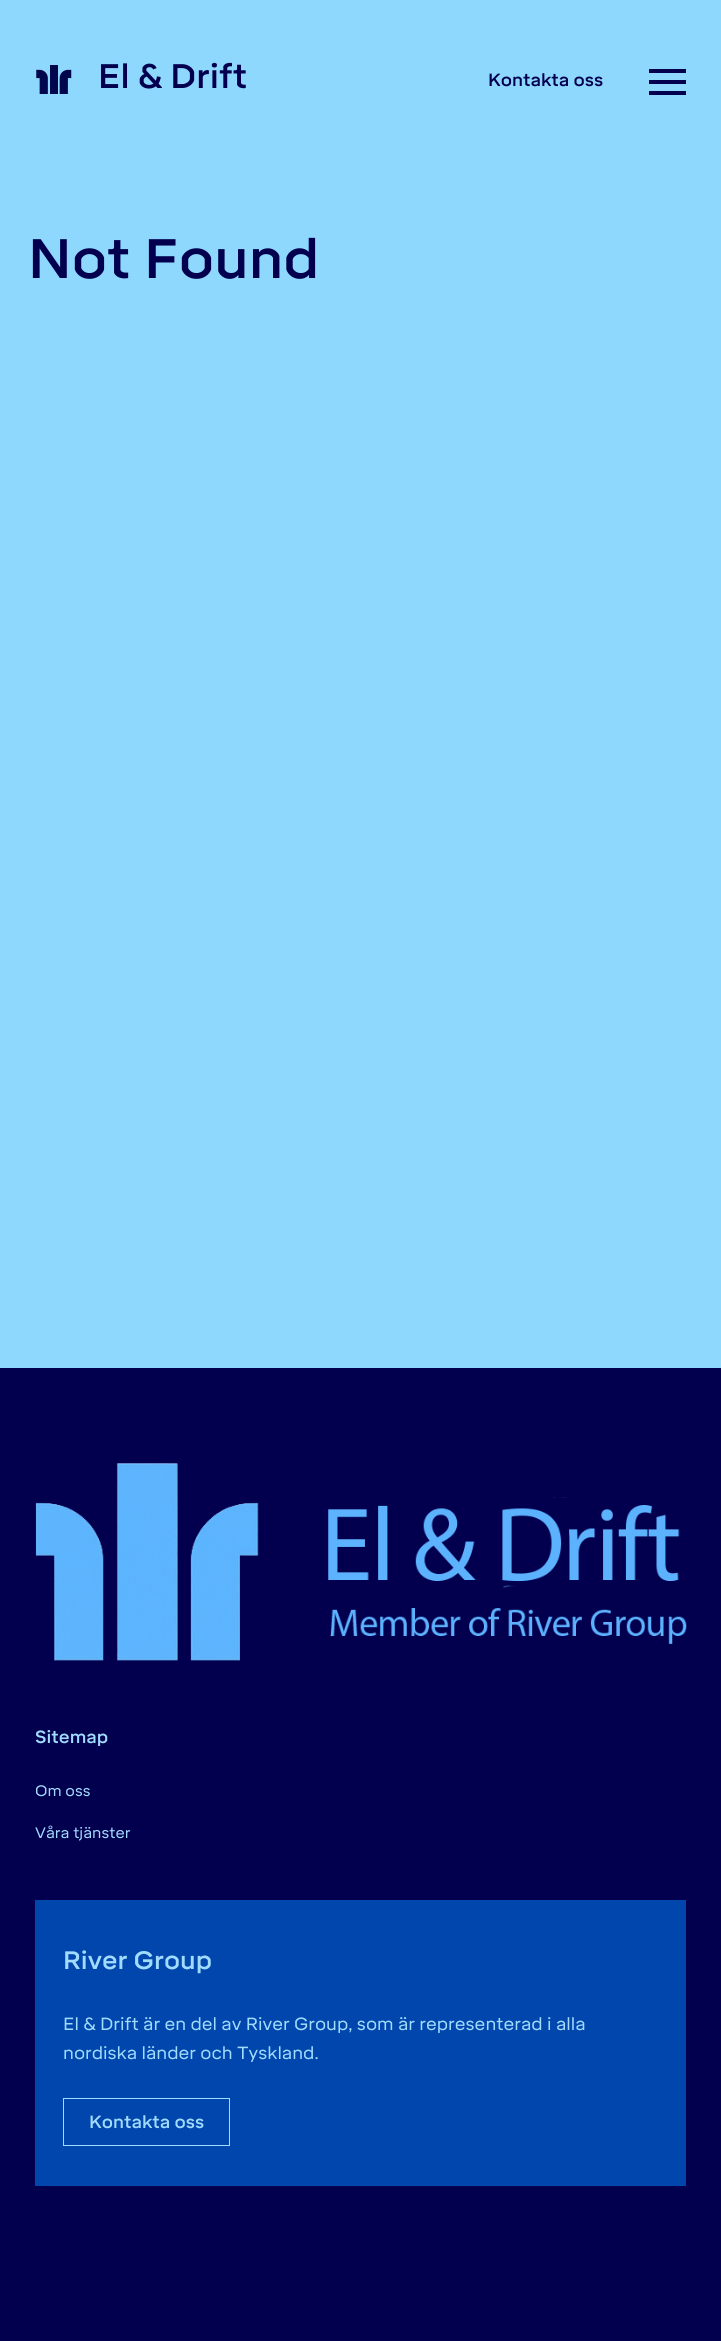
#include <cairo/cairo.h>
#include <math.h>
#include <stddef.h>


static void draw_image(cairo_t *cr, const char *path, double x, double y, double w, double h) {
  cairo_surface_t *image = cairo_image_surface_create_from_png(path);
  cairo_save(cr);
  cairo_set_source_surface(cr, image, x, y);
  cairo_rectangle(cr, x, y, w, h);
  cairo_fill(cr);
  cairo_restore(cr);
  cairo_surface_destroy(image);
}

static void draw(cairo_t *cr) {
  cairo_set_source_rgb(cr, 142 / 255.0, 215 / 255.0, 253 / 255.0);
  cairo_paint(cr);
  draw_image(cr, "images/1.png", 36, 65, 36, 29);
  cairo_set_source_rgb(cr, 2 / 255.0, 0, 78 / 255.0);
  cairo_rectangle(cr, 649, 80, 37, 4);
  cairo_fill(cr);
  cairo_rectangle(cr, 649, 69, 37, 4);
  cairo_fill(cr);
  cairo_rectangle(cr, 649, 91, 37, 4);
  cairo_fill(cr);
  cairo_rectangle(cr, 0, 1368, 721, 973);
  cairo_fill(cr);
  draw_image(cr, "images/2.png", 35, 1463, 652, 198);
  cairo_set_source_rgb(cr, 0, 70 / 255.0, 173 / 255.0);
  cairo_rectangle(cr, 35, 1900, 651, 286);
  cairo_fill(cr);
  cairo_rectangle(cr, 63.5, 2098.5, 166, 47);
  cairo_set_source_rgb(cr, 161 / 255.0, 220 / 255.0, 1);
  cairo_set_line_width(cr, 1);
  cairo_stroke(cr);
  cairo_select_font_face(cr, "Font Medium", CAIRO_FONT_SLANT_NORMAL, CAIRO_FONT_WEIGHT_NORMAL);
  cairo_set_font_size(cr, 33.75);
  cairo_set_source_rgb(cr, 2 / 255.0, 0, 78 / 255.0);
  cairo_move_to(cr, 98, 88);
  cairo_show_text(cr, "El & Drift");
  cairo_set_font_size(cr, 17.5);
  cairo_move_to(cr, 488, 86);
  cairo_show_text(cr, "Kontakta oss");
  cairo_set_font_size(cr, 55);
  cairo_move_to(cr, 28, 278);
  cairo_show_text(cr, "Not Found");
  cairo_set_font_size(cr, 17.5);
  cairo_set_source_rgb(cr, 161 / 255.0, 220 / 255.0, 1);
  cairo_move_to(cr, 35, 1743);
  cairo_show_text(cr, "Sitemap");
  cairo_select_font_face(cr, "Font", CAIRO_FONT_SLANT_NORMAL, CAIRO_FONT_WEIGHT_NORMAL);
  cairo_set_font_size(cr, 15);
  cairo_move_to(cr, 35, 1796);
  cairo_show_text(cr, "Om oss");
  cairo_move_to(cr, 35, 1838);
  cairo_show_text(cr, "Våra tjänster");
  cairo_select_font_face(cr, "Font Medium", CAIRO_FONT_SLANT_NORMAL, CAIRO_FONT_WEIGHT_NORMAL);
  cairo_set_font_size(cr, 25);
  cairo_move_to(cr, 63, 1969);
  cairo_show_text(cr, "River Group");
  cairo_select_font_face(cr, "Font", CAIRO_FONT_SLANT_NORMAL, CAIRO_FONT_WEIGHT_NORMAL);
  cairo_set_font_size(cr, 17.5);
  cairo_move_to(cr, 63, 2030);
  cairo_show_text(cr, "El & Drift är en del av River Group, som är representerad i alla");
  cairo_move_to(cr, 63, 2059);
  cairo_show_text(cr, "nordiska länder och Tyskland.");
  cairo_select_font_face(cr, "Font Medium", CAIRO_FONT_SLANT_NORMAL, CAIRO_FONT_WEIGHT_NORMAL);
  cairo_move_to(cr, 89, 2128);
  cairo_show_text(cr, "Kontakta oss");
}

int main(void) {
  cairo_surface_t *surface = cairo_image_surface_create(CAIRO_FORMAT_RGB24, 721, 2341);
  cairo_t *cr = cairo_create(surface);
  cairo_font_options_t *options = cairo_font_options_create();
  cairo_font_options_set_hint_metrics(options, CAIRO_HINT_METRICS_OFF);
  cairo_font_options_set_hint_style(options, CAIRO_HINT_STYLE_NONE);
  cairo_set_font_options(cr, options);
  cairo_set_miter_limit(cr, 4);
  draw(cr);
  cairo_surface_write_to_png(surface, "out.png");
  cairo_font_options_destroy(options);
  cairo_destroy(cr);
  cairo_surface_destroy(surface);
  return 0;
}
